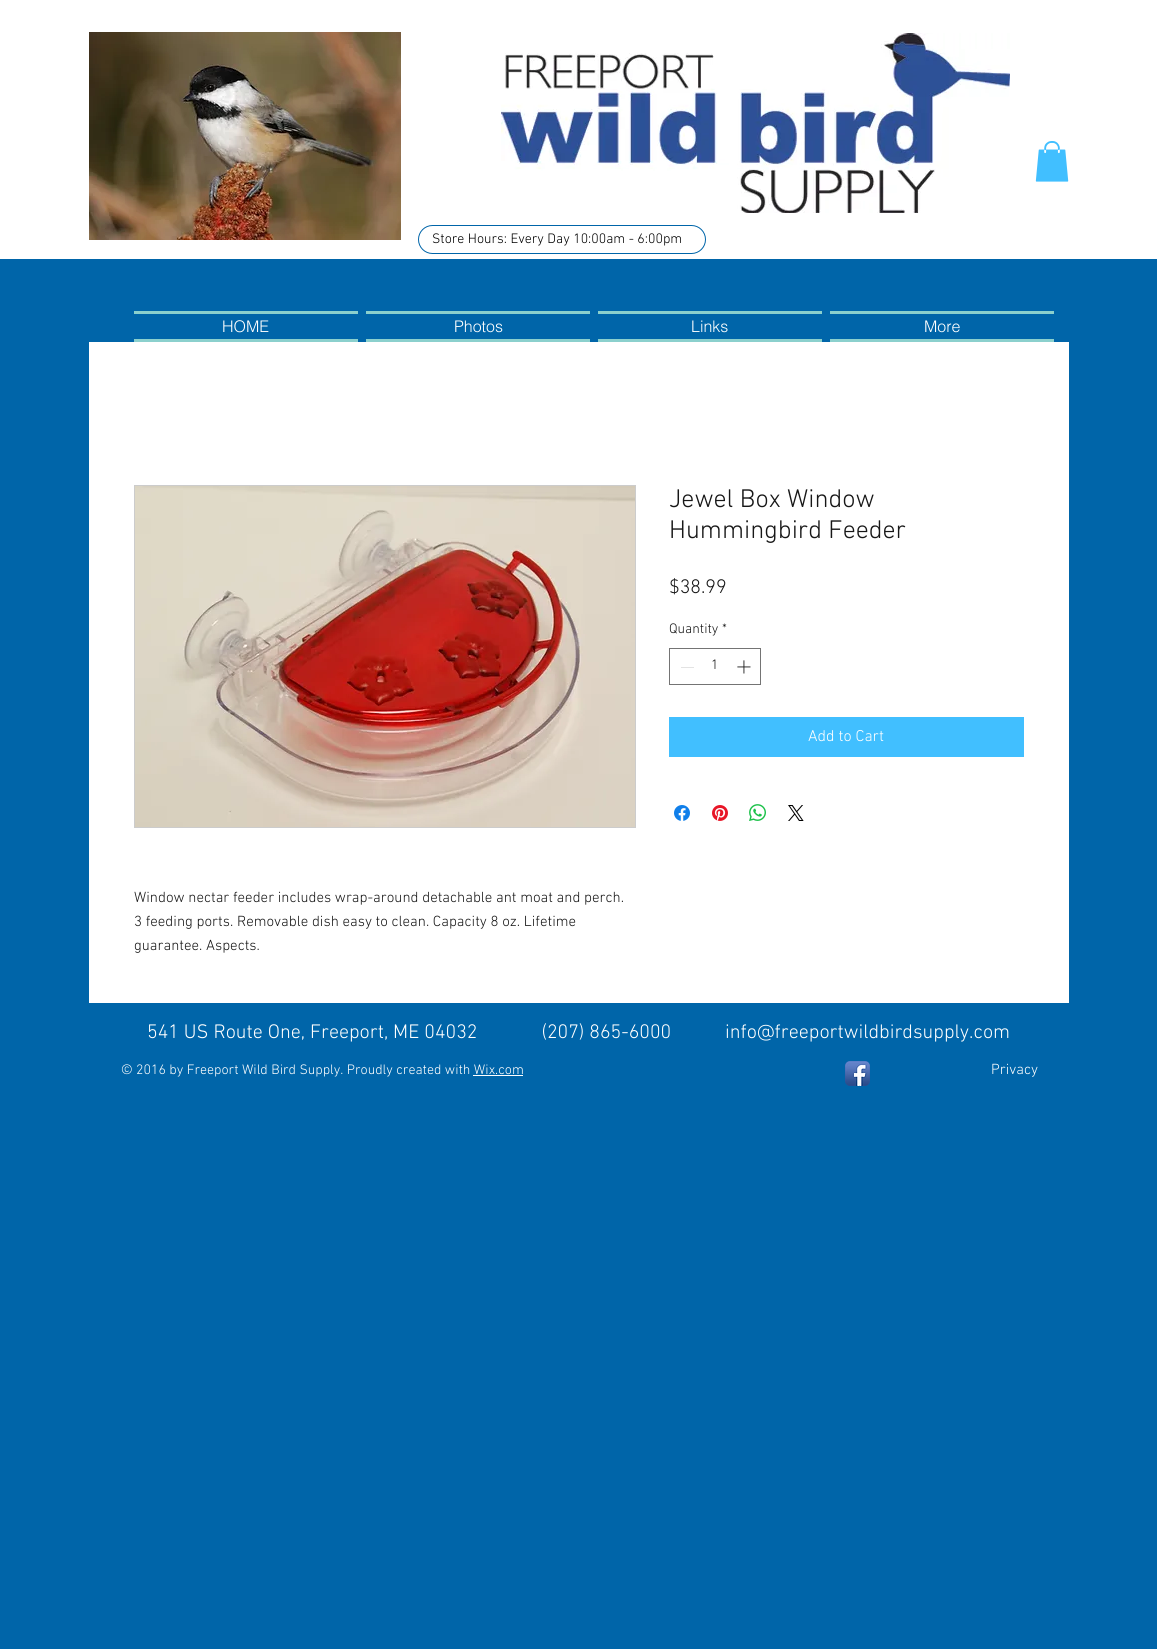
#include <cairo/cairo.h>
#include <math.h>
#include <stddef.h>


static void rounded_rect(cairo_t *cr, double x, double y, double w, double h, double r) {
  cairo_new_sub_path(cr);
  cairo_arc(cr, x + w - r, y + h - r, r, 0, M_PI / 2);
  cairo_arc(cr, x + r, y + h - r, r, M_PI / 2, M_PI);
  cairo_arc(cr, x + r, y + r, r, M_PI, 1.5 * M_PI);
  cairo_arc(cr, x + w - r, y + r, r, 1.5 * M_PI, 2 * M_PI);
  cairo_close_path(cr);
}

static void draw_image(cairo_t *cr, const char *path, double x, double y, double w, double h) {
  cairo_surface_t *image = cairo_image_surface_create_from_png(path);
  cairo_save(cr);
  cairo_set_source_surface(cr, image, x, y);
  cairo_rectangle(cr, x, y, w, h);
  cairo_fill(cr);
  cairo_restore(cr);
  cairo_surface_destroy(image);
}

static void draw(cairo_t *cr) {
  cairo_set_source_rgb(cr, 0, 101 / 255.0, 169 / 255.0);
  cairo_paint(cr);
  cairo_set_source_rgb(cr, 1, 1, 1);
  cairo_rectangle(cr, 0, 0, 1157, 259);
  cairo_fill(cr);
  draw_image(cr, "images/1.png", 89, 32, 312, 208);
  draw_image(cr, "images/2.png", 501, 33, 509, 180);
  draw_image(cr, "images/3.png", 1035, 141, 34, 41);
  rounded_rect(cr, 418.5, 225.5, 287, 28, 14);
  cairo_set_source_rgb(cr, 0, 101 / 255.0, 169 / 255.0);
  cairo_set_line_width(cr, 1);
  cairo_stroke(cr);
  cairo_set_source_rgb(cr, 139 / 255.0, 208 / 255.0, 205 / 255.0);
  cairo_rectangle(cr, 134, 311, 224, 3);
  cairo_fill(cr);
  cairo_rectangle(cr, 134, 339, 224, 3);
  cairo_fill(cr);
  cairo_rectangle(cr, 366, 311, 224, 3);
  cairo_fill(cr);
  cairo_rectangle(cr, 366, 339, 224, 3);
  cairo_fill(cr);
  cairo_rectangle(cr, 598, 311, 224, 3);
  cairo_fill(cr);
  cairo_rectangle(cr, 598, 339, 224, 3);
  cairo_fill(cr);
  cairo_rectangle(cr, 830, 311, 224, 3);
  cairo_fill(cr);
  cairo_rectangle(cr, 830, 339, 224, 3);
  cairo_fill(cr);
  cairo_set_source_rgb(cr, 1, 1, 1);
  cairo_rectangle(cr, 89, 342, 980, 661);
  cairo_fill(cr);
  cairo_rectangle(cr, 669.5, 648.5, 91, 36);
  cairo_set_source_rgb(cr, 116 / 255.0, 116 / 255.0, 116 / 255.0);
  cairo_stroke(cr);
  cairo_set_source_rgb(cr, 227 / 255.0, 227 / 255.0, 227 / 255.0);
  cairo_rectangle(cr, 681, 667, 13, 1);
  cairo_fill(cr);
  draw_image(cr, "images/4.png", 737, 660, 14, 14);
  cairo_set_source_rgb(cr, 65 / 255.0, 191 / 255.0, 1);
  cairo_rectangle(cr, 669, 717, 355, 40);
  cairo_fill(cr);
  draw_image(cr, "images/5.png", 674, 805, 16, 16);
  draw_image(cr, "images/6.png", 712, 805, 16, 16);
  draw_image(cr, "images/7.png", 749, 804, 17, 17);
  draw_image(cr, "images/8.png", 788, 805, 16, 16);
  cairo_rectangle(cr, 134.5, 485.5, 501, 342);
  cairo_set_source_rgb(cr, 204 / 255.0, 204 / 255.0, 204 / 255.0);
  cairo_stroke(cr);
  draw_image(cr, "images/9.png", 135, 486, 500, 341);
  cairo_set_source_rgb(cr, 1, 1, 1);
  cairo_rectangle(cr, 473, 1075, 50, 1);
  cairo_fill(cr);
  draw_image(cr, "images/10.png", 845, 1061, 25, 25);
  cairo_select_font_face(cr, "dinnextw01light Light", CAIRO_FONT_SLANT_NORMAL, CAIRO_FONT_WEIGHT_NORMAL);
  cairo_set_font_size(cr, 14);
  cairo_set_source_rgb(cr, 0, 0, 0);
  cairo_move_to(cr, 432, 243);
  cairo_show_text(cr, "Store Hours: Every Day 10:00am - 6:00pm");
  cairo_select_font_face(cr, "helvetica Light", CAIRO_FONT_SLANT_NORMAL, CAIRO_FONT_WEIGHT_NORMAL);
  cairo_set_font_size(cr, 16);
  cairo_set_source_rgb(cr, 1, 1, 1);
  cairo_move_to(cr, 222, 332);
  cairo_show_text(cr, "HOME");
  cairo_move_to(cr, 454, 332);
  cairo_show_text(cr, "Photos");
  cairo_move_to(cr, 691, 332);
  cairo_show_text(cr, "Links");
  cairo_move_to(cr, 924, 332);
  cairo_show_text(cr, "More");
  cairo_select_font_face(cr, "dinnextw01light Light", CAIRO_FONT_SLANT_NORMAL, CAIRO_FONT_WEIGHT_NORMAL);
  cairo_set_font_size(cr, 26);
  cairo_set_source_rgb(cr, 23 / 255.0, 23 / 255.0, 23 / 255.0);
  cairo_move_to(cr, 669, 507);
  cairo_show_text(cr, "Jewel Box Window");
  cairo_move_to(cr, 669, 538);
  cairo_show_text(cr, "Hummingbird Feeder");
  cairo_set_font_size(cr, 20);
  cairo_move_to(cr, 669, 593);
  cairo_show_text(cr, "$38.99");
  cairo_set_font_size(cr, 14);
  cairo_move_to(cr, 669, 633);
  cairo_show_text(cr, "Quantity");
  cairo_move_to(cr, 722, 633);
  cairo_show_text(cr, "*");
  cairo_move_to(cr, 711, 669);
  cairo_show_text(cr, "1");
  cairo_set_font_size(cr, 16);
  cairo_set_source_rgb(cr, 1, 1, 1);
  cairo_move_to(cr, 808, 741);
  cairo_show_text(cr, "Add to Cart");
  cairo_set_font_size(cr, 15);
  cairo_set_source_rgb(cr, 23 / 255.0, 23 / 255.0, 23 / 255.0);
  cairo_move_to(cr, 134, 902);
  cairo_show_text(cr, "Window nectar feeder includes wrap-around detachable ant moat and perch.");
  cairo_move_to(cr, 134, 926);
  cairo_show_text(cr, "3 feeding ports. Removable dish easy to clean. Capacity 8 oz. Lifetime");
  cairo_move_to(cr, 134, 950);
  cairo_show_text(cr, "guarantee. Aspects.");
  cairo_set_font_size(cr, 20);
  cairo_set_source_rgb(cr, 1, 1, 1);
  cairo_move_to(cr, 147, 1038);
  cairo_show_text(cr, "541 US Route One, Freeport, ME 04032             (207) 865-6000");
  cairo_move_to(cr, 725, 1038);
  cairo_show_text(cr, "info@freeportwildbirdsupply.com");
  cairo_set_font_size(cr, 14);
  cairo_move_to(cr, 121, 1074);
  cairo_show_text(cr, "© 2016 by Freeport Wild Bird Supply. Proudly created with Wix.com");
  cairo_set_font_size(cr, 15);
  cairo_move_to(cr, 991, 1074);
  cairo_show_text(cr, "Privacy");
}

int main(void) {
  cairo_surface_t *surface = cairo_image_surface_create(CAIRO_FORMAT_RGB24, 1157, 1649);
  cairo_t *cr = cairo_create(surface);
  cairo_font_options_t *options = cairo_font_options_create();
  cairo_font_options_set_hint_metrics(options, CAIRO_HINT_METRICS_OFF);
  cairo_font_options_set_hint_style(options, CAIRO_HINT_STYLE_NONE);
  cairo_set_font_options(cr, options);
  cairo_set_miter_limit(cr, 4);
  draw(cr);
  cairo_surface_write_to_png(surface, "out.png");
  cairo_font_options_destroy(options);
  cairo_destroy(cr);
  cairo_surface_destroy(surface);
  return 0;
}
